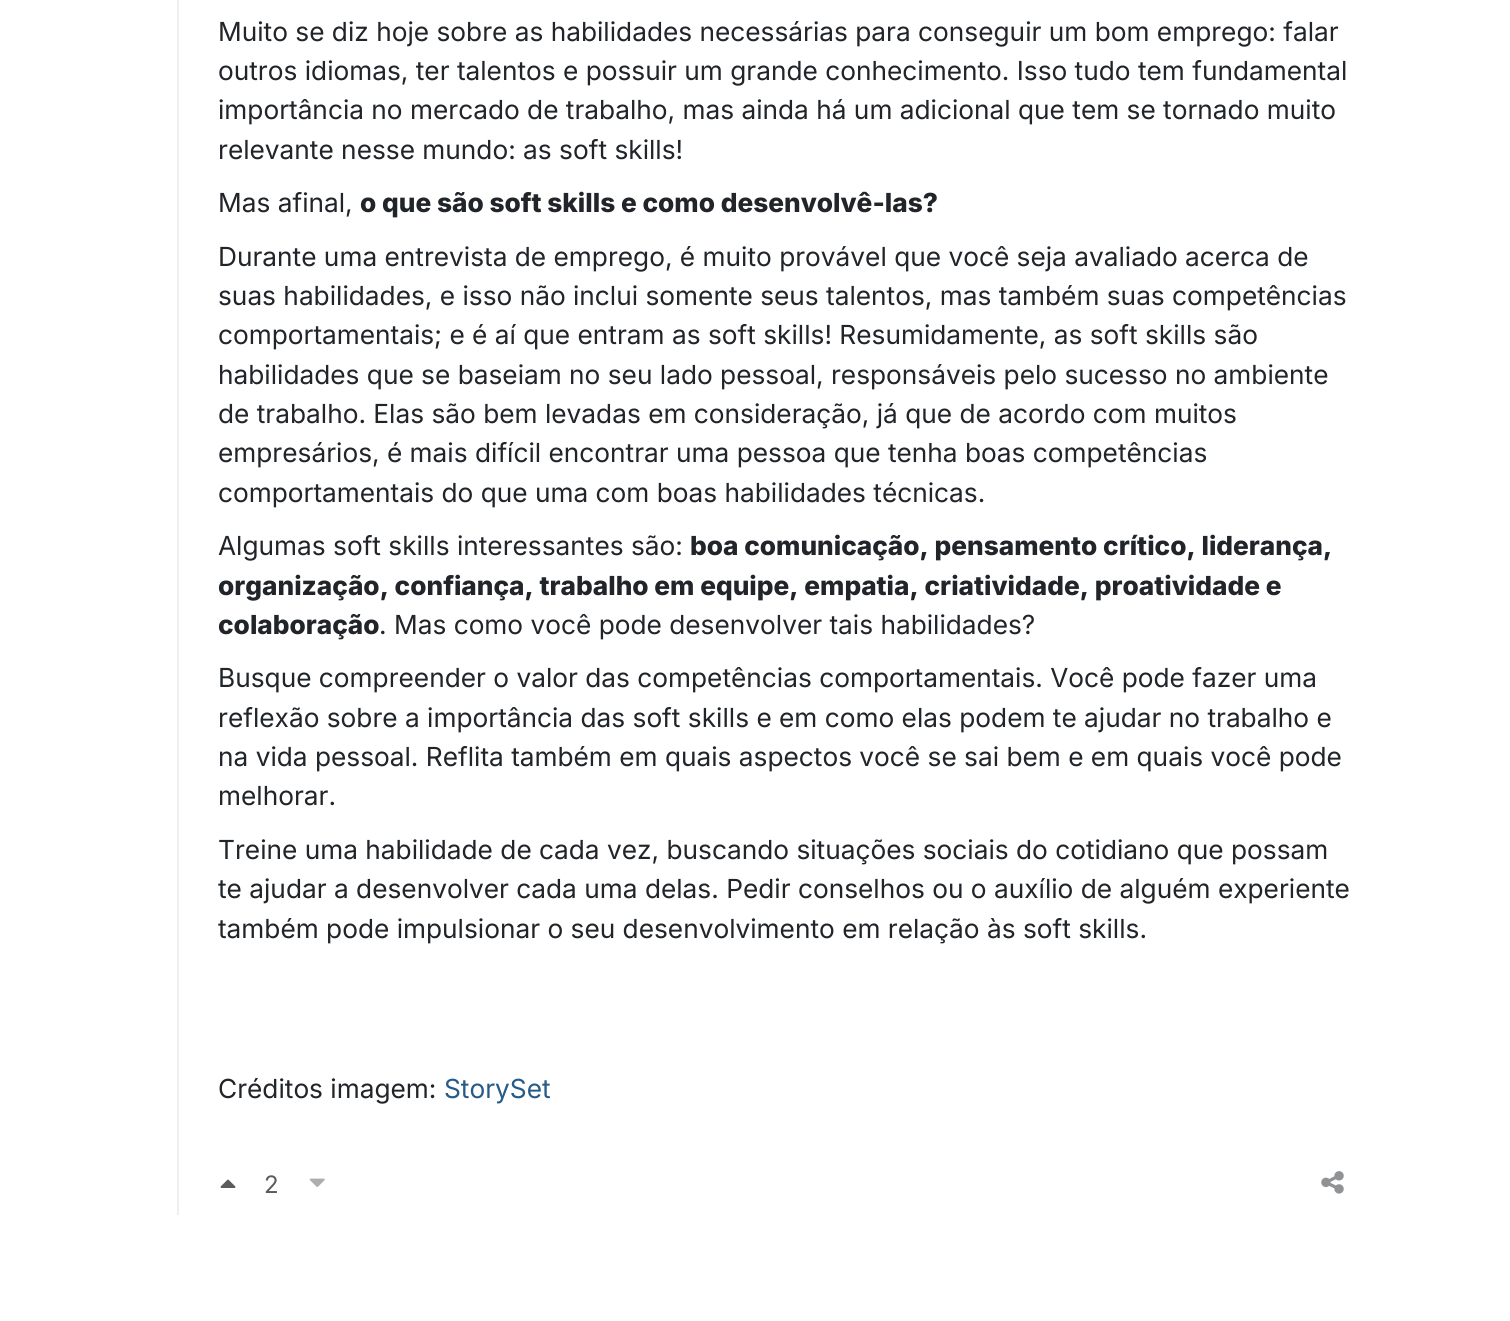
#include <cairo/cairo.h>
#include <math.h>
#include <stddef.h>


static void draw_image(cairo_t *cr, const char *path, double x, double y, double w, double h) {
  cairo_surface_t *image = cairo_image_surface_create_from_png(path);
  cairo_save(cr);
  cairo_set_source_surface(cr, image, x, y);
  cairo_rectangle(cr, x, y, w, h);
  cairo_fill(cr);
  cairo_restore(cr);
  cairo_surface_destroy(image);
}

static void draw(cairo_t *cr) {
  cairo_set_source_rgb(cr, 1, 1, 1);
  cairo_paint(cr);
  cairo_set_source_rgb(cr, 238 / 255.0, 239 / 255.0, 239 / 255.0);
  cairo_rectangle(cr, 177, 0, 2, 1215);
  cairo_fill(cr);
  draw_image(cr, "images/1.png", 220, 1179, 16, 9);
  draw_image(cr, "images/2.png", 309, 1178, 16, 9);
  draw_image(cr, "images/3.png", 1321, 1171, 23, 23);
  cairo_select_font_face(cr, "Inter", CAIRO_FONT_SLANT_NORMAL, CAIRO_FONT_WEIGHT_NORMAL);
  cairo_set_font_size(cr, 26.25);
  cairo_set_source_rgb(cr, 33 / 255.0, 37 / 255.0, 41 / 255.0);
  cairo_move_to(cr, 218, 41);
  cairo_show_text(cr, "Muito se diz hoje sobre as habilidades necessárias para conseguir um bom emprego: falar");
  cairo_move_to(cr, 218, 80);
  cairo_show_text(cr, "outros idiomas, ter talentos e possuir um grande conhecimento. Isso tudo tem fundamental");
  cairo_move_to(cr, 218, 119);
  cairo_show_text(cr, "importância no mercado de trabalho, mas ainda há um adicional que tem se tornado muito");
  cairo_move_to(cr, 218, 159);
  cairo_show_text(cr, "relevante nesse mundo: as soft skills!");
  cairo_move_to(cr, 218, 212);
  cairo_show_text(cr, "Mas afinal,");
  cairo_select_font_face(cr, "Inter ExtraBold", CAIRO_FONT_SLANT_NORMAL, CAIRO_FONT_WEIGHT_NORMAL);
  cairo_move_to(cr, 360, 212);
  cairo_show_text(cr, "o que são soft skills e como desenvolvê-las?");
  cairo_select_font_face(cr, "Inter", CAIRO_FONT_SLANT_NORMAL, CAIRO_FONT_WEIGHT_NORMAL);
  cairo_move_to(cr, 218, 266);
  cairo_show_text(cr, "Durante uma entrevista de emprego, é muito provável que você seja avaliado acerca de");
  cairo_move_to(cr, 218, 305);
  cairo_show_text(cr, "suas habilidades, e isso não inclui somente seus talentos, mas também suas competências");
  cairo_move_to(cr, 218, 344);
  cairo_show_text(cr, "comportamentais; e é aí que entram as soft skills! Resumidamente, as soft skills são");
  cairo_move_to(cr, 218, 384);
  cairo_show_text(cr, "habilidades que se baseiam no seu lado pessoal, responsáveis pelo sucesso no ambiente");
  cairo_move_to(cr, 218, 423);
  cairo_show_text(cr, "de trabalho. Elas são bem levadas em consideração, já que de acordo com muitos");
  cairo_move_to(cr, 218, 462);
  cairo_show_text(cr, "empresários, é mais difícil encontrar uma pessoa que tenha boas competências");
  cairo_move_to(cr, 218, 502);
  cairo_show_text(cr, "comportamentais do que uma com boas habilidades técnicas.");
  cairo_move_to(cr, 218, 555);
  cairo_show_text(cr, "Algumas soft skills interessantes são:");
  cairo_select_font_face(cr, "Inter ExtraBold", CAIRO_FONT_SLANT_NORMAL, CAIRO_FONT_WEIGHT_NORMAL);
  cairo_move_to(cr, 690, 555);
  cairo_show_text(cr, "boa comunicação, pensamento crítico, liderança,");
  cairo_move_to(cr, 218, 595);
  cairo_show_text(cr, "organização, confiança, trabalho em equipe, empatia, criatividade, proatividade e");
  cairo_move_to(cr, 218, 634);
  cairo_show_text(cr, "colaboração");
  cairo_select_font_face(cr, "Inter", CAIRO_FONT_SLANT_NORMAL, CAIRO_FONT_WEIGHT_NORMAL);
  cairo_move_to(cr, 379, 634);
  cairo_show_text(cr, ". Mas como você pode desenvolver tais habilidades?");
  cairo_move_to(cr, 218, 687);
  cairo_show_text(cr, "Busque compreender o valor das competências comportamentais. Você pode fazer uma");
  cairo_move_to(cr, 218, 727);
  cairo_show_text(cr, "reflexão sobre a importância das soft skills e em como elas podem te ajudar no trabalho e");
  cairo_move_to(cr, 218, 766);
  cairo_show_text(cr, "na vida pessoal. Reflita também em quais aspectos você se sai bem e em quais você pode");
  cairo_move_to(cr, 218, 805);
  cairo_show_text(cr, "melhorar.");
  cairo_move_to(cr, 218, 859);
  cairo_show_text(cr, "Treine uma habilidade de cada vez, buscando situações sociais do cotidiano que possam");
  cairo_move_to(cr, 218, 898);
  cairo_show_text(cr, "te ajudar a desenvolver cada uma delas. Pedir conselhos ou o auxílio de alguém experiente");
  cairo_move_to(cr, 218, 938);
  cairo_show_text(cr, "também pode impulsionar o seu desenvolvimento em relação às soft skills.");
  cairo_move_to(cr, 218, 1098);
  cairo_show_text(cr, "Créditos imagem:");
  cairo_set_source_rgb(cr, 38 / 255.0, 90 / 255.0, 135 / 255.0);
  cairo_move_to(cr, 444, 1098);
  cairo_show_text(cr, "StorySet");
  cairo_set_font_size(cr, 24);
  cairo_set_source_rgb(cr, 89 / 255.0, 92 / 255.0, 95 / 255.0);
  cairo_move_to(cr, 264, 1193);
  cairo_show_text(cr, "2");
}

int main(void) {
  cairo_surface_t *surface = cairo_image_surface_create(CAIRO_FORMAT_RGB24, 1510, 1321);
  cairo_t *cr = cairo_create(surface);
  cairo_font_options_t *options = cairo_font_options_create();
  cairo_font_options_set_hint_metrics(options, CAIRO_HINT_METRICS_OFF);
  cairo_font_options_set_hint_style(options, CAIRO_HINT_STYLE_NONE);
  cairo_set_font_options(cr, options);
  cairo_set_miter_limit(cr, 4);
  draw(cr);
  cairo_surface_write_to_png(surface, "out.png");
  cairo_font_options_destroy(options);
  cairo_destroy(cr);
  cairo_surface_destroy(surface);
  return 0;
}
